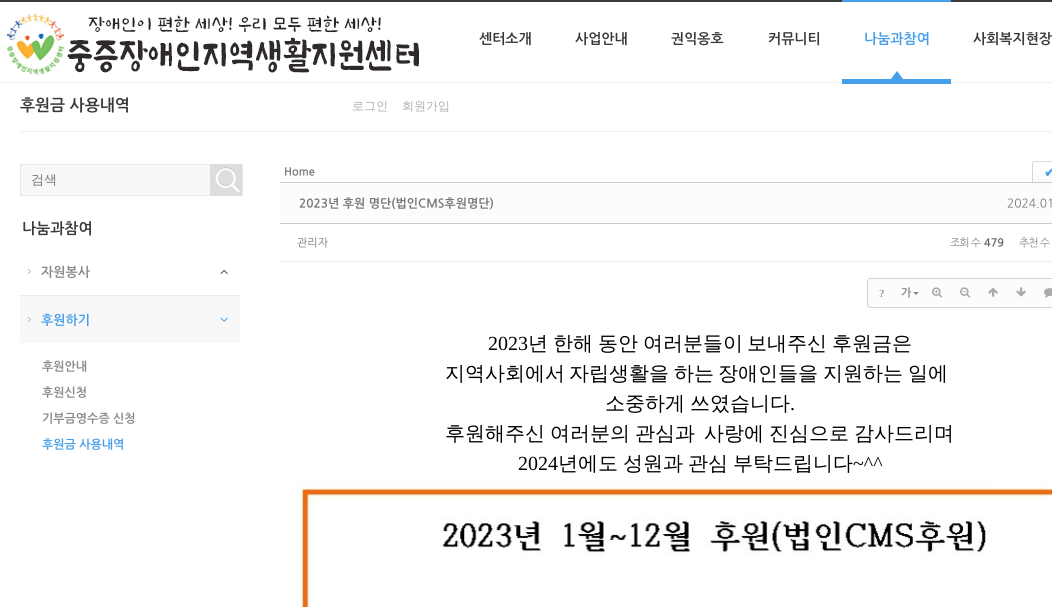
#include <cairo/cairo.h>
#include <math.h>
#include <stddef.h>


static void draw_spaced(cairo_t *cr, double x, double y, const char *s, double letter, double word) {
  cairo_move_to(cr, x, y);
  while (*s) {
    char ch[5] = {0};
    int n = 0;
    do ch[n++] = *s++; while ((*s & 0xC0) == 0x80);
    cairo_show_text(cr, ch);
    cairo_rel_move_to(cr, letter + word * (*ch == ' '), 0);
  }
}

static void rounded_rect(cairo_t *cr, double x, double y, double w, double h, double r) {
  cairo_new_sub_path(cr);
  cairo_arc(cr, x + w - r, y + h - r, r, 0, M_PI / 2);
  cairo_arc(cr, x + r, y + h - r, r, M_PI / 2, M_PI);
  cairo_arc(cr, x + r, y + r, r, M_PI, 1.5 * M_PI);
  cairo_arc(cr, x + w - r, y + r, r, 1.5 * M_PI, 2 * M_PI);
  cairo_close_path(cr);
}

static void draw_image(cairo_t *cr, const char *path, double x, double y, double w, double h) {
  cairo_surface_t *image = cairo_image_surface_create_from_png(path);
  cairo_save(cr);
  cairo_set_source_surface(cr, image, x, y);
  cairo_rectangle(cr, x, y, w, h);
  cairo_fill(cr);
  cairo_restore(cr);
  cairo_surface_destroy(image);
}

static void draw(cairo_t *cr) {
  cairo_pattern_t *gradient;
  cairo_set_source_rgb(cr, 1, 1, 1);
  cairo_paint(cr);
  cairo_set_source_rgb(cr, 58 / 255.0, 58 / 255.0, 58 / 255.0);
  cairo_rectangle(cr, 0, 0, 1052, 2);
  cairo_fill(cr);
  cairo_set_source_rgb(cr, 239 / 255.0, 239 / 255.0, 239 / 255.0);
  cairo_rectangle(cr, 0, 82, 1052, 1);
  cairo_fill(cr);
  draw_image(cr, "images/1.png", 0, 13, 419, 62);
  cairo_set_source_rgb(cr, 70 / 255.0, 159 / 255.0, 234 / 255.0);
  cairo_rectangle(cr, 842, 0, 109, 2);
  cairo_fill(cr);
  cairo_rectangle(cr, 842, 79, 109, 5);
  cairo_fill(cr);
  cairo_new_path(cr);
  cairo_move_to(cr, 903, 79);
  cairo_line_to(cr, 891, 79);
  cairo_line_to(cr, 897, 71);
  cairo_close_path(cr);
  cairo_fill(cr);
  cairo_set_source_rgb(cr, 239 / 255.0, 239 / 255.0, 239 / 255.0);
  cairo_rectangle(cr, 20, 131, 1032, 1);
  cairo_fill(cr);
  cairo_set_source_rgb(cr, 248 / 255.0, 248 / 255.0, 248 / 255.0);
  cairo_rectangle(cr, 21, 165, 189, 30);
  cairo_fill(cr);
  cairo_rectangle(cr, 20.5, 164.5, 222, 31);
  cairo_set_source_rgb(cr, 232 / 255.0, 232 / 255.0, 232 / 255.0);
  cairo_set_line_width(cr, 1);
  cairo_stroke(cr);
  draw_image(cr, "images/2.png", 210, 164, 32, 32);
  cairo_new_path(cr);
  cairo_move_to(cr, 20, 295.5);
  cairo_line_to(cr, 240, 295.5);
  cairo_set_source_rgb(cr, 206 / 255.0, 216 / 255.0, 223 / 255.0);
  cairo_set_dash(cr, (double[]){1, 1}, 2, 0);
  cairo_stroke(cr);
  draw_image(cr, "images/3.png", 28, 269, 3, 5);
  draw_image(cr, "images/4.png", 220, 269, 8, 5);
  cairo_set_source_rgb(cr, 248 / 255.0, 248 / 255.0, 248 / 255.0);
  cairo_rectangle(cr, 20, 296, 220, 47);
  cairo_fill(cr);
  draw_image(cr, "images/5.png", 28, 317, 3, 5);
  draw_image(cr, "images/6.png", 220, 317, 8, 5);
  gradient = cairo_pattern_create_linear(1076, 162, 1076, 184);
  cairo_pattern_add_color_stop_rgba(gradient, 0, 1, 1, 1, 1);
  cairo_pattern_add_color_stop_rgba(gradient, 1, 249 / 255.0, 249 / 255.0, 249 / 255.0, 1);
  cairo_set_source(cr, gradient);
  cairo_pattern_destroy(gradient);
  cairo_rectangle(cr, 1032, 171, 20, 11);
  cairo_fill(cr);
  cairo_new_path(cr);
  cairo_move_to(cr, 1033, 162);
  cairo_line_to(cr, 1035, 161.5);
  cairo_line_to(cr, 1048.5, 161.5);
  cairo_curve_to(cr, 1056, 161.5, 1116.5, 160.5, 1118.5, 162);
  cairo_line_to(cr, 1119, 162);
  cairo_set_source_rgb(cr, 221 / 255.0, 221 / 255.0, 221 / 255.0);
  cairo_set_dash(cr, NULL, 0, 0);
  cairo_stroke(cr);
  cairo_new_path(cr);
  cairo_move_to(cr, 1033, 184);
  cairo_curve_to(cr, 1033, 183.5, 1032.5, 182.5, 1032.5, 182);
  cairo_line_to(cr, 1032.5, 164);
  cairo_curve_to(cr, 1032.5, 163.5, 1033, 162.5, 1033, 162);
  cairo_set_source_rgb(cr, 214 / 255.0, 214 / 255.0, 214 / 255.0);
  cairo_stroke(cr);
  cairo_set_source_rgb(cr, 252 / 255.0, 252 / 255.0, 252 / 255.0);
  cairo_rectangle(cr, 280, 183, 772, 40);
  cairo_fill(cr);
  cairo_set_source_rgb(cr, 204 / 255.0, 204 / 255.0, 204 / 255.0);
  cairo_rectangle(cr, 280, 182, 772, 1);
  cairo_fill(cr);
  cairo_rectangle(cr, 280, 223, 772, 1);
  cairo_fill(cr);
  cairo_set_source_rgb(cr, 238 / 255.0, 238 / 255.0, 238 / 255.0);
  cairo_rectangle(cr, 280, 261, 772, 1);
  cairo_fill(cr);
  cairo_set_source_rgb(cr, 252 / 255.0, 252 / 255.0, 252 / 255.0);
  rounded_rect(cr, 867.5, 278.5, 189, 29, 3.5);
  cairo_fill_preserve(cr);
  cairo_set_source_rgb(cr, 211 / 255.0, 211 / 255.0, 211 / 255.0);
  cairo_stroke(cr);
  cairo_set_source_rgb(cr, 136 / 255.0, 136 / 255.0, 136 / 255.0);
  cairo_new_path(cr);
  cairo_move_to(cr, 913, 292);
  cairo_line_to(cr, 919, 292);
  cairo_line_to(cr, 916, 295);
  cairo_close_path(cr);
  cairo_fill(cr);
  draw_image(cr, "images/7.png", 932, 287, 11, 11);
  draw_image(cr, "images/8.png", 960, 287, 11, 11);
  draw_image(cr, "images/9.png", 988, 287, 10, 10);
  draw_image(cr, "images/10.png", 1016, 287, 10, 10);
  draw_image(cr, "images/11.png", 1044, 288, 8, 10);
  draw_image(cr, "images/12.png", 295, 480, 757, 127);
  cairo_select_font_face(cr, "NanumGothic", CAIRO_FONT_SLANT_NORMAL, CAIRO_FONT_WEIGHT_BOLD);
  cairo_set_font_size(cr, 14);
  cairo_set_source_rgb(cr, 58 / 255.0, 58 / 255.0, 58 / 255.0);
  cairo_move_to(cr, 479, 43);
  cairo_show_text(cr, "센터소개");
  cairo_move_to(cr, 575, 43);
  cairo_show_text(cr, "사업안내");
  cairo_move_to(cr, 671, 43);
  cairo_show_text(cr, "권익옹호");
  cairo_move_to(cr, 768, 43);
  cairo_show_text(cr, "커뮤니티");
  cairo_set_source_rgb(cr, 70 / 255.0, 159 / 255.0, 234 / 255.0);
  cairo_move_to(cr, 864, 43);
  cairo_show_text(cr, "나눔과참여");
  cairo_set_source_rgb(cr, 58 / 255.0, 58 / 255.0, 58 / 255.0);
  cairo_move_to(cr, 973, 43);
  cairo_show_text(cr, "사회복지현장");
  cairo_set_font_size(cr, 16);
  cairo_move_to(cr, 20, 110);
  cairo_show_text(cr, "후원금 사용내역");
  cairo_select_font_face(cr, "WenQuanYi Zen Hei Medium", CAIRO_FONT_SLANT_NORMAL, CAIRO_FONT_WEIGHT_NORMAL);
  cairo_set_font_size(cr, 12);
  cairo_set_source_rgb(cr, 174 / 255.0, 174 / 255.0, 174 / 255.0);
  cairo_move_to(cr, 352, 110);
  cairo_show_text(cr, "로그인");
  cairo_move_to(cr, 402, 110);
  cairo_show_text(cr, "회원가입");
  cairo_set_font_size(cr, 13);
  cairo_set_source_rgb(cr, 117 / 255.0, 117 / 255.0, 117 / 255.0);
  cairo_move_to(cr, 31, 184);
  cairo_show_text(cr, "검색");
  cairo_select_font_face(cr, "NanumGothic", CAIRO_FONT_SLANT_NORMAL, CAIRO_FONT_WEIGHT_BOLD);
  cairo_set_font_size(cr, 15);
  cairo_set_source_rgb(cr, 58 / 255.0, 58 / 255.0, 58 / 255.0);
  cairo_move_to(cr, 22, 233);
  cairo_show_text(cr, "나눔과참여");
  cairo_set_font_size(cr, 13);
  cairo_set_source_rgb(cr, 136 / 255.0, 136 / 255.0, 136 / 255.0);
  cairo_move_to(cr, 41, 276);
  cairo_show_text(cr, "자원봉사");
  cairo_set_source_rgb(cr, 70 / 255.0, 159 / 255.0, 234 / 255.0);
  cairo_move_to(cr, 41, 324);
  cairo_show_text(cr, "후원하기");
  cairo_set_font_size(cr, 12);
  cairo_set_source_rgb(cr, 136 / 255.0, 136 / 255.0, 136 / 255.0);
  cairo_move_to(cr, 42, 370);
  cairo_show_text(cr, "후원안내");
  cairo_move_to(cr, 42, 396);
  cairo_show_text(cr, "후원신청");
  cairo_move_to(cr, 42, 422);
  cairo_show_text(cr, "기부금영수증 신청");
  cairo_set_source_rgb(cr, 70 / 255.0, 159 / 255.0, 234 / 255.0);
  cairo_move_to(cr, 42, 448);
  cairo_show_text(cr, "후원금 사용내역");
  cairo_set_font_size(cr, 11);
  cairo_set_source_rgb(cr, 117 / 255.0, 117 / 255.0, 117 / 255.0);
  cairo_move_to(cr, 284, 175);
  cairo_show_text(cr, "Home");
  cairo_select_font_face(cr, "DejaVu Sans", CAIRO_FONT_SLANT_NORMAL, CAIRO_FONT_WEIGHT_BOLD);
  cairo_set_font_size(cr, 13);
  cairo_set_source_rgb(cr, 70 / 255.0, 159 / 255.0, 234 / 255.0);
  draw_spaced(cr, 1044, 177, "✔", -1, 0);
  cairo_select_font_face(cr, "NanumGothic", CAIRO_FONT_SLANT_NORMAL, CAIRO_FONT_WEIGHT_BOLD);
  cairo_set_font_size(cr, 12);
  cairo_set_source_rgb(cr, 117 / 255.0, 117 / 255.0, 117 / 255.0);
  cairo_move_to(cr, 299, 207);
  cairo_show_text(cr, "2023년 후원 명단(법인CMS후원명단)");
  cairo_select_font_face(cr, "NanumGothic", CAIRO_FONT_SLANT_NORMAL, CAIRO_FONT_WEIGHT_NORMAL);
  cairo_move_to(cr, 1007, 207);
  cairo_show_text(cr, "2024.01");
  cairo_set_font_size(cr, 11);
  cairo_move_to(cr, 297, 246);
  cairo_show_text(cr, "관리자");
  cairo_set_source_rgb(cr, 136 / 255.0, 136 / 255.0, 136 / 255.0);
  draw_spaced(cr, 950, 246, "조회 수", -1, 0);
  cairo_select_font_face(cr, "NanumGothic", CAIRO_FONT_SLANT_NORMAL, CAIRO_FONT_WEIGHT_BOLD);
  cairo_set_source_rgb(cr, 102 / 255.0, 102 / 255.0, 102 / 255.0);
  cairo_move_to(cr, 984, 246);
  cairo_show_text(cr, "479");
  cairo_select_font_face(cr, "NanumGothic", CAIRO_FONT_SLANT_NORMAL, CAIRO_FONT_WEIGHT_NORMAL);
  cairo_set_source_rgb(cr, 136 / 255.0, 136 / 255.0, 136 / 255.0);
  draw_spaced(cr, 1019, 246, "추천 수", -1, 0);
  cairo_select_font_face(cr, "Liberation Serif", CAIRO_FONT_SLANT_NORMAL, CAIRO_FONT_WEIGHT_BOLD);
  cairo_set_source_rgb(cr, 153 / 255.0, 153 / 255.0, 153 / 255.0);
  draw_spaced(cr, 879, 297, "?", -1, 0);
  cairo_select_font_face(cr, "NanumGothic", CAIRO_FONT_SLANT_NORMAL, CAIRO_FONT_WEIGHT_BOLD);
  cairo_set_source_rgb(cr, 136 / 255.0, 136 / 255.0, 136 / 255.0);
  draw_spaced(cr, 901, 296, "가", -1, 0);
  cairo_select_font_face(cr, "Liberation Serif", CAIRO_FONT_SLANT_NORMAL, CAIRO_FONT_WEIGHT_NORMAL);
  cairo_set_font_size(cr, 20);
  cairo_set_source_rgb(cr, 0, 0, 0);
  cairo_move_to(cr, 488, 350);
  cairo_show_text(cr, "2023");
  cairo_select_font_face(cr, "WenQuanYi Zen Hei Medium", CAIRO_FONT_SLANT_NORMAL, CAIRO_FONT_WEIGHT_NORMAL);
  draw_spaced(cr, 528, 350, "년 한해 동안 여러분들이", 0, -1);
  draw_spaced(cr, 747, 350, "보내주신 후원금은", 0, -1);
  cairo_move_to(cr, 445, 380);
  cairo_show_text(cr, "지역사회에서");
  draw_spaced(cr, 569, 380, "자립생활을 하는", 0, -1);
  draw_spaced(cr, 718, 380, "장애인들을 지원하는 일에", 0, -1);
  draw_spaced(cr, 605, 410, "소중하게 쓰였습니다", 0, -1);
  cairo_select_font_face(cr, "Liberation Serif", CAIRO_FONT_SLANT_NORMAL, CAIRO_FONT_WEIGHT_NORMAL);
  cairo_move_to(cr, 790, 410);
  cairo_show_text(cr, ".");
  cairo_select_font_face(cr, "WenQuanYi Zen Hei Medium", CAIRO_FONT_SLANT_NORMAL, CAIRO_FONT_WEIGHT_NORMAL);
  draw_spaced(cr, 445, 440, "후원해주신 여러분의 관심과", 0, -1);
  draw_spaced(cr, 704, 440, "사랑에 진심으로 감사드리며", 0, -1);
  cairo_select_font_face(cr, "Liberation Serif", CAIRO_FONT_SLANT_NORMAL, CAIRO_FONT_WEIGHT_NORMAL);
  cairo_move_to(cr, 518, 470);
  cairo_show_text(cr, "2024");
  cairo_select_font_face(cr, "WenQuanYi Zen Hei Medium", CAIRO_FONT_SLANT_NORMAL, CAIRO_FONT_WEIGHT_NORMAL);
  draw_spaced(cr, 558, 470, "년에도 성원과 관심 부탁드립니다", 0, -1);
  cairo_select_font_face(cr, "Liberation Serif", CAIRO_FONT_SLANT_NORMAL, CAIRO_FONT_WEIGHT_NORMAL);
  cairo_move_to(cr, 853, 470);
  cairo_show_text(cr, "~^^");
}

int main(void) {
  cairo_surface_t *surface = cairo_image_surface_create(CAIRO_FORMAT_RGB24, 1052, 607);
  cairo_t *cr = cairo_create(surface);
  cairo_font_options_t *options = cairo_font_options_create();
  cairo_font_options_set_hint_metrics(options, CAIRO_HINT_METRICS_OFF);
  cairo_font_options_set_hint_style(options, CAIRO_HINT_STYLE_NONE);
  cairo_set_font_options(cr, options);
  cairo_set_miter_limit(cr, 4);
  draw(cr);
  cairo_surface_write_to_png(surface, "out.png");
  cairo_font_options_destroy(options);
  cairo_destroy(cr);
  cairo_surface_destroy(surface);
  return 0;
}
